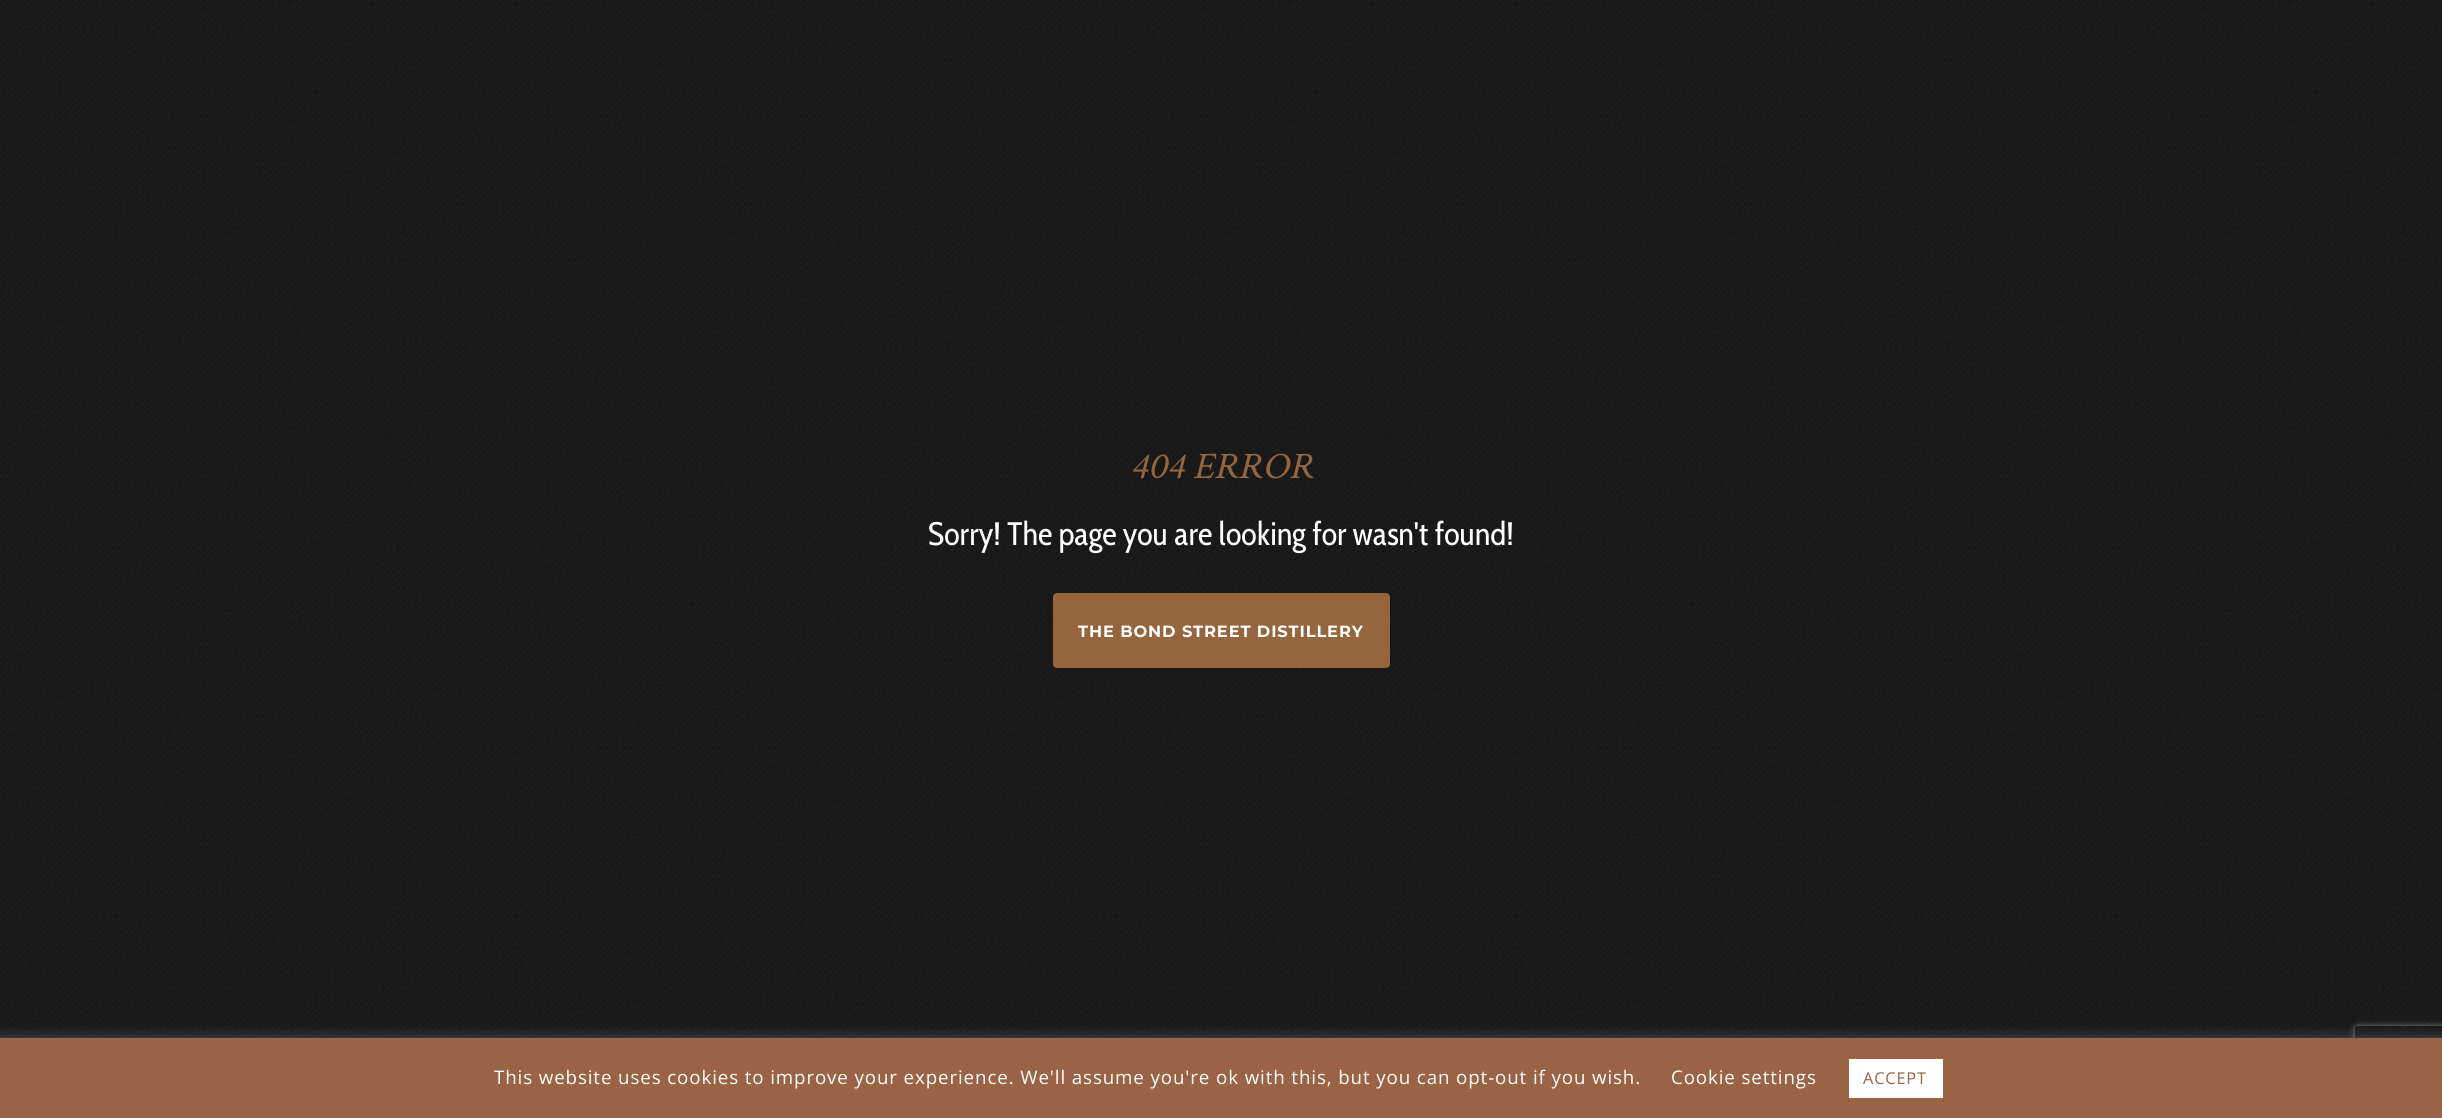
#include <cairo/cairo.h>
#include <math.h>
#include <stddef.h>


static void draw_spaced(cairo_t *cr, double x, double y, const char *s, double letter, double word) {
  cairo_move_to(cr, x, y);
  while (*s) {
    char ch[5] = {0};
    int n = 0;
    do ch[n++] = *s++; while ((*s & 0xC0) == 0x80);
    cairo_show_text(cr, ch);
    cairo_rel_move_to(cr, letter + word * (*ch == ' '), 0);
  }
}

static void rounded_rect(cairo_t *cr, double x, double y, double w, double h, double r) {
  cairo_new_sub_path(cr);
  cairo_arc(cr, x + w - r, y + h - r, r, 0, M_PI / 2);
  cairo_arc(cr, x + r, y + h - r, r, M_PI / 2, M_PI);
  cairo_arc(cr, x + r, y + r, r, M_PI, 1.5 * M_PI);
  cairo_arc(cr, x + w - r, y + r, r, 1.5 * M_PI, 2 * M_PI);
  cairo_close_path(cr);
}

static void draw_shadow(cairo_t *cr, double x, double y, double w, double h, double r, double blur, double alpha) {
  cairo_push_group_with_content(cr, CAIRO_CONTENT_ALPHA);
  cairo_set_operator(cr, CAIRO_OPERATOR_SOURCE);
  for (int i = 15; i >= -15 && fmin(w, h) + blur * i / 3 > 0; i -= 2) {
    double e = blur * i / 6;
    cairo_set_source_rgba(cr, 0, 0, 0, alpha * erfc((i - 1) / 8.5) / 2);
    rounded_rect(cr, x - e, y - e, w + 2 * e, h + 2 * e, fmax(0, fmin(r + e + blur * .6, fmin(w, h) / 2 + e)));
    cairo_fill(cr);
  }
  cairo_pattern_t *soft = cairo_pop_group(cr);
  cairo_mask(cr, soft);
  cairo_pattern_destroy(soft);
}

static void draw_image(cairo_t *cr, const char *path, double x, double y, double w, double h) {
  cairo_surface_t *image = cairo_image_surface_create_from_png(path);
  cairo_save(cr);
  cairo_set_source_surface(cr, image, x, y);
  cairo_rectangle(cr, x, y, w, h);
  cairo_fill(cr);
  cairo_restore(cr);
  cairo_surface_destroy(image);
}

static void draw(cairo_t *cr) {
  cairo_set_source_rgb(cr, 26 / 255.0, 25 / 255.0, 26 / 255.0);
  cairo_paint(cr);
  draw_image(cr, "images/1.png", 0, 0, 2441, 1038);
  cairo_set_source_rgb(cr, 149 / 255.0, 101 / 255.0, 62 / 255.0);
  rounded_rect(cr, 1053, 593, 337, 75, 4);
  cairo_fill(cr);
  cairo_set_source_rgb(cr, 172 / 255.0, 171 / 255.0, 171 / 255.0);
  draw_shadow(cr, 0, 1036, 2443, 82, 0, 6, 0.3);
  cairo_save(cr);
  cairo_set_fill_rule(cr, CAIRO_FILL_RULE_EVEN_ODD);
  cairo_new_path(cr);
  cairo_move_to(cr, 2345, 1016);
  cairo_line_to(cr, 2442, 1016);
  cairo_line_to(cr, 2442, 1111);
  cairo_line_to(cr, 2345, 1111);
  cairo_close_path(cr);
  cairo_move_to(cr, 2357.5, 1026);
  cairo_line_to(cr, 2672.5, 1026);
  cairo_curve_to(cr, 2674, 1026, 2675, 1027, 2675, 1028.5);
  cairo_line_to(cr, 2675, 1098.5);
  cairo_curve_to(cr, 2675, 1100, 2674, 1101, 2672.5, 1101);
  cairo_line_to(cr, 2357.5, 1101);
  cairo_curve_to(cr, 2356, 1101, 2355, 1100, 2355, 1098.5);
  cairo_line_to(cr, 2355, 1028.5);
  cairo_curve_to(cr, 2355, 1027, 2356, 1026, 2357.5, 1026);
  cairo_close_path(cr);
  cairo_clip(cr);
  cairo_set_source_rgb(cr, 128 / 255.0, 128 / 255.0, 128 / 255.0);
  draw_shadow(cr, 2355, 1026, 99, 75, 2.5, 3, 1);
  cairo_restore(cr);
  cairo_set_source_rgb(cr, 155 / 255.0, 99 / 255.0, 69 / 255.0);
  cairo_rectangle(cr, 0, 1038, 2442, 80);
  cairo_fill(cr);
  cairo_set_source_rgb(cr, 1, 1, 1);
  cairo_rectangle(cr, 1849, 1059, 94, 39);
  cairo_fill(cr);
  cairo_select_font_face(cr, "Crimson Text", CAIRO_FONT_SLANT_ITALIC, CAIRO_FONT_WEIGHT_NORMAL);
  cairo_set_font_size(cr, 37.5);
  cairo_set_source_rgb(cr, 149 / 255.0, 101 / 255.0, 62 / 255.0);
  cairo_move_to(cr, 1130, 478);
  cairo_show_text(cr, "404 ERROR");
  cairo_select_font_face(cr, "Cabin Condensed", CAIRO_FONT_SLANT_NORMAL, CAIRO_FONT_WEIGHT_NORMAL);
  cairo_set_font_size(cr, 32.5);
  cairo_set_source_rgb(cr, 1, 1, 1);
  cairo_move_to(cr, 928, 545);
  cairo_show_text(cr, "Sorry! The page you are looking for wasn't found!");
  cairo_select_font_face(cr, "Montserrat Thin", CAIRO_FONT_SLANT_NORMAL, CAIRO_FONT_WEIGHT_NORMAL);
  cairo_set_font_size(cr, 16.25);
  draw_spaced(cr, 1078, 637, "THE BOND STREET DISTILLERY", 0.88, 0);
  cairo_select_font_face(cr, "Open Sans", CAIRO_FONT_SLANT_NORMAL, CAIRO_FONT_WEIGHT_NORMAL);
  cairo_set_font_size(cr, 18.75);
  draw_spaced(cr, 494, 1084, "This website uses cookies to improve your experience. We'll assume you're ok with this, but you can opt-out if you wish.", 0.88, 0);
  draw_spaced(cr, 1671, 1084, "Cookie settings", 0.88, 0);
  cairo_set_font_size(cr, 16.25);
  cairo_set_source_rgb(cr, 155 / 255.0, 99 / 255.0, 69 / 255.0);
  draw_spaced(cr, 1863, 1084, "ACCEPT", 0.88, 0);
}

int main(void) {
  cairo_surface_t *surface = cairo_image_surface_create(CAIRO_FORMAT_RGB24, 2442, 1118);
  cairo_t *cr = cairo_create(surface);
  cairo_font_options_t *options = cairo_font_options_create();
  cairo_font_options_set_hint_metrics(options, CAIRO_HINT_METRICS_OFF);
  cairo_font_options_set_hint_style(options, CAIRO_HINT_STYLE_NONE);
  cairo_set_font_options(cr, options);
  cairo_set_miter_limit(cr, 4);
  draw(cr);
  cairo_surface_write_to_png(surface, "out.png");
  cairo_font_options_destroy(options);
  cairo_destroy(cr);
  cairo_surface_destroy(surface);
  return 0;
}
